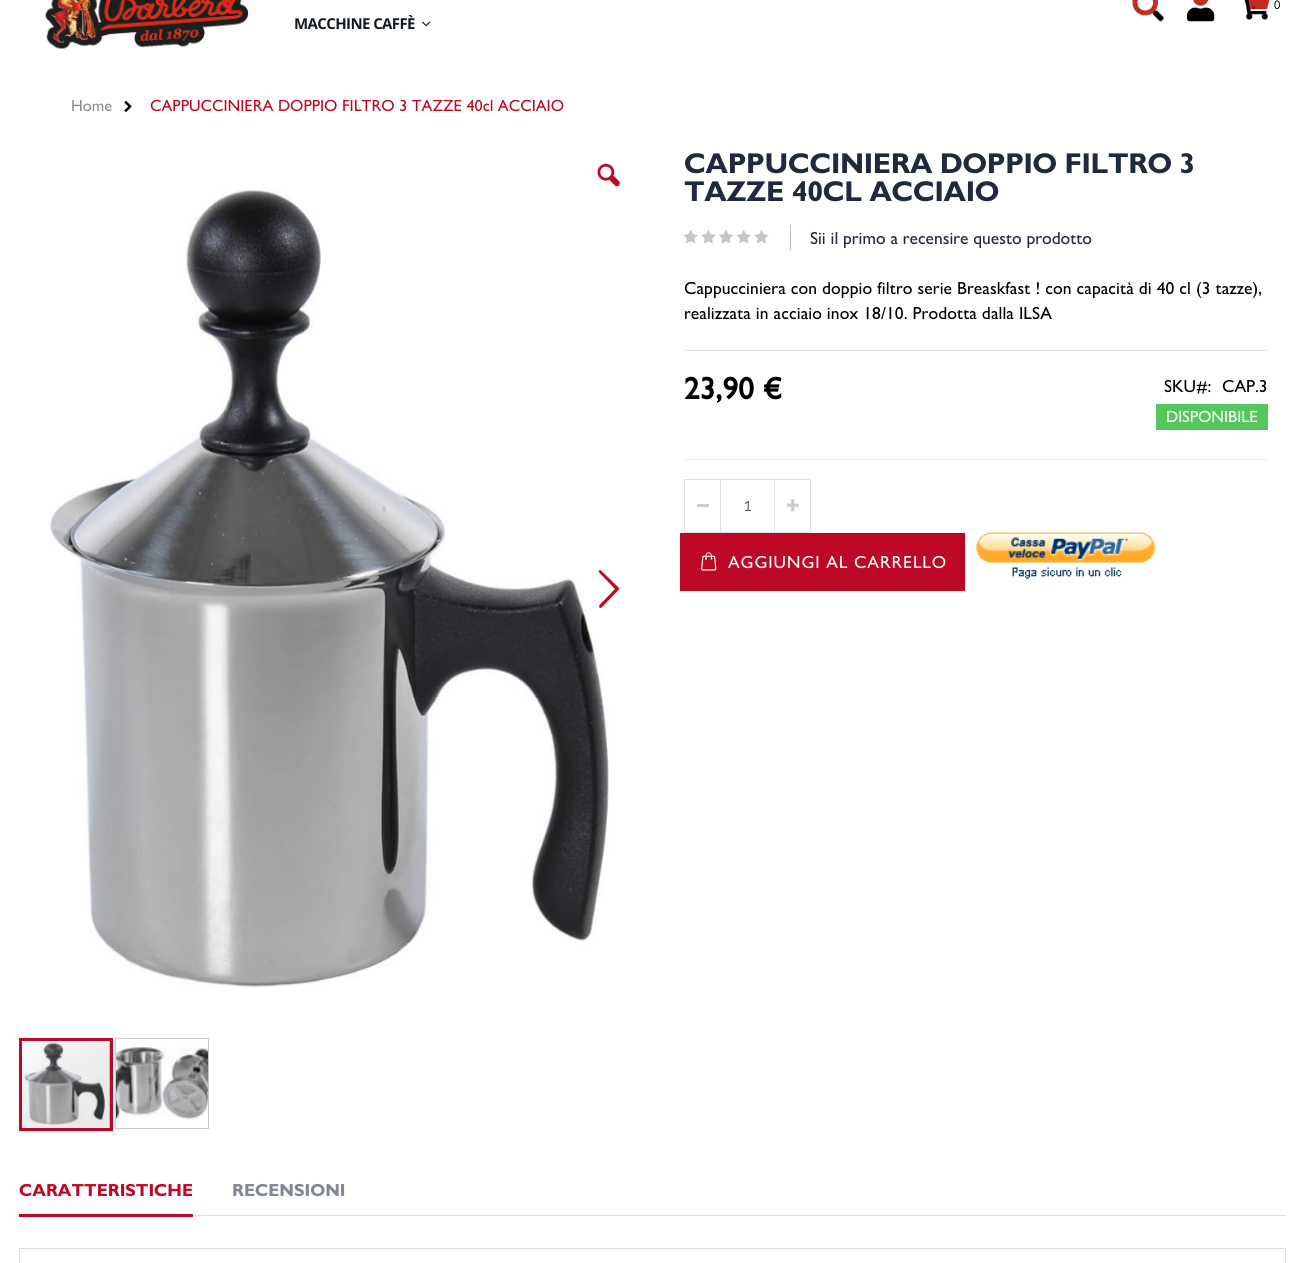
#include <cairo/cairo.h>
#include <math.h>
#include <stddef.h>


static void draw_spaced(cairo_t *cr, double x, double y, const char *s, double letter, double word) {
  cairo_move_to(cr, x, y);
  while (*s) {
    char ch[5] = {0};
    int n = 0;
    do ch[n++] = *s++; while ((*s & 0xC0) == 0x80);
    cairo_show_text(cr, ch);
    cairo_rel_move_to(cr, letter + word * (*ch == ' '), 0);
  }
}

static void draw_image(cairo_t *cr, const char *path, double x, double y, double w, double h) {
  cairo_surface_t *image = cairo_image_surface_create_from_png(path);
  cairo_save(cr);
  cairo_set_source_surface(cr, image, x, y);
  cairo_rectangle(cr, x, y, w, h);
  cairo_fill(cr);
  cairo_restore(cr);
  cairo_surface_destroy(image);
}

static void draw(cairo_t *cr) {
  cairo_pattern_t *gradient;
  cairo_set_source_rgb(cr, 1, 1, 1);
  cairo_paint(cr);
  draw_image(cr, "images/1.png", 45, 0, 204, 49);
  draw_image(cr, "images/2.png", 1132, 0, 32, 22);
  draw_image(cr, "images/3.png", 1187, 0, 28, 22);
  draw_image(cr, "images/4.png", 1244, 0, 26, 20);
  draw_image(cr, "images/5.png", 421, 21, 10, 6);
  draw_image(cr, "images/6.png", 124, 100, 8, 12);
  draw_image(cr, "images/7.png", 597, 163, 23, 24);
  draw_image(cr, "images/8.png", 49, 189, 560, 799);
  cairo_set_source_rgb(cr, 189 / 255.0, 9 / 255.0, 38 / 255.0);
  cairo_new_path(cr);
  cairo_move_to(cr, 599.5, 605);
  cairo_line_to(cr, 615, 589);
  cairo_line_to(cr, 602, 575.5);
  cairo_curve_to(cr, 601.5, 575, 596.5, 571, 600, 570);
  cairo_line_to(cr, 601, 570.5);
  cairo_line_to(cr, 619, 588);
  cairo_line_to(cr, 619, 589);
  cairo_line_to(cr, 619, 589.5);
  cairo_line_to(cr, 604.5, 604.5);
  cairo_curve_to(cr, 604, 605, 600, 610.5, 599, 606.5);
  cairo_close_path(cr);
  cairo_fill(cr);
  cairo_rectangle(cr, 19.5, 1038.5, 90, 90);
  cairo_set_source_rgb(cr, 204 / 255.0, 204 / 255.0, 204 / 255.0);
  cairo_set_line_width(cr, 1);
  cairo_stroke(cr);
  draw_image(cr, "images/9.png", 23, 1042, 82, 83);
  gradient = cairo_pattern_create_linear(21, 1040, 110, 1129);
  cairo_pattern_add_color_stop_rgba(gradient, 0, 1, 1, 1, 0.25);
  cairo_pattern_add_color_stop_rgba(gradient, 1, 64 / 255.0, 64 / 255.0, 64 / 255.0, 0.1);
  cairo_set_source(cr, gradient);
  cairo_pattern_destroy(gradient);
  cairo_rectangle(cr, 22, 1041, 88, 87);
  cairo_fill(cr);
  cairo_rectangle(cr, 20.5, 1039.5, 91, 90);
  cairo_set_source_rgb(cr, 189 / 255.0, 9 / 255.0, 38 / 255.0);
  cairo_set_line_width(cr, 3);
  cairo_stroke(cr);
  cairo_rectangle(cr, 115.5, 1038.5, 93, 90);
  cairo_set_source_rgb(cr, 204 / 255.0, 204 / 255.0, 204 / 255.0);
  cairo_set_line_width(cr, 1);
  cairo_stroke(cr);
  draw_image(cr, "images/10.png", 116, 1047, 92, 73);
  draw_image(cr, "images/11.png", 683, 230, 86, 14);
  cairo_set_source_rgb(cr, 189 / 255.0, 189 / 255.0, 189 / 255.0);
  cairo_rectangle(cr, 790, 225, 1, 25);
  cairo_fill(cr);
  cairo_set_source_rgb(cr, 218 / 255.0, 226 / 255.0, 230 / 255.0);
  cairo_rectangle(cr, 684, 350, 584, 1);
  cairo_fill(cr);
  cairo_set_source_rgb(cr, 235 / 255.0, 235 / 255.0, 235 / 255.0);
  cairo_rectangle(cr, 684, 459, 584, 1);
  cairo_fill(cr);
  cairo_set_source_rgb(cr, 85 / 255.0, 198 / 255.0, 94 / 255.0);
  cairo_rectangle(cr, 1156, 404, 112, 26);
  cairo_fill(cr);
  cairo_rectangle(cr, 720.5, 479.5, 54, 53);
  cairo_set_source_rgb(cr, 218 / 255.0, 226 / 255.0, 230 / 255.0);
  cairo_stroke(cr);
  cairo_rectangle(cr, 684.5, 479.5, 36, 53);
  cairo_stroke(cr);
  cairo_set_source_rgb(cr, 204 / 255.0, 204 / 255.0, 204 / 255.0);
  cairo_rectangle(cr, 697, 504, 12, 3);
  cairo_fill(cr);
  cairo_rectangle(cr, 774.5, 479.5, 36, 53);
  cairo_set_source_rgb(cr, 218 / 255.0, 226 / 255.0, 230 / 255.0);
  cairo_stroke(cr);
  draw_image(cr, "images/12.png", 786, 499, 13, 13);
  cairo_set_source_rgb(cr, 189 / 255.0, 9 / 255.0, 38 / 255.0);
  cairo_rectangle(cr, 680, 533, 285, 58);
  cairo_fill(cr);
  draw_image(cr, "images/13.png", 701, 552, 16, 19);
  draw_image(cr, "images/14.png", 976, 532, 180, 47);
  cairo_rectangle(cr, 19, 1214, 174, 3);
  cairo_fill(cr);
  cairo_set_source_rgb(cr, 218 / 255.0, 226 / 255.0, 230 / 255.0);
  cairo_rectangle(cr, 193, 1215, 1093, 1);
  cairo_fill(cr);
  cairo_rectangle(cr, 19.5, 1248.5, 1266, 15);
  cairo_set_source_rgb(cr, 221 / 255.0, 221 / 255.0, 221 / 255.0);
  cairo_stroke(cr);
  cairo_select_font_face(cr, "Liberation Serif", CAIRO_FONT_SLANT_NORMAL, CAIRO_FONT_WEIGHT_BOLD);
  cairo_set_font_size(cr, 22);
  cairo_set_source_rgb(cr, 173 / 255.0, 10 / 255.0, 37 / 255.0);
  cairo_move_to(cr, 1251, 9);
  cairo_show_text(cr, ".");
  cairo_select_font_face(cr, "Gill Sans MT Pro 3", CAIRO_FONT_SLANT_NORMAL, CAIRO_FONT_WEIGHT_BOLD);
  cairo_set_font_size(cr, 12);
  cairo_set_source_rgb(cr, 0, 0, 0);
  cairo_move_to(cr, 1274, 9);
  cairo_show_text(cr, "0");
  cairo_select_font_face(cr, "Open Sans", CAIRO_FONT_SLANT_NORMAL, CAIRO_FONT_WEIGHT_BOLD);
  cairo_set_font_size(cr, 15);
  cairo_set_source_rgb(cr, 20 / 255.0, 26 / 255.0, 31 / 255.0);
  draw_spaced(cr, 294, 29, "MACCHINE CAFFÈ", -0.6, 0);
  cairo_select_font_face(cr, "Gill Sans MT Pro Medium", CAIRO_FONT_SLANT_NORMAL, CAIRO_FONT_WEIGHT_NORMAL);
  cairo_set_font_size(cr, 16.25);
  cairo_set_source_rgb(cr, 142 / 255.0, 142 / 255.0, 142 / 255.0);
  cairo_move_to(cr, 71, 111);
  cairo_show_text(cr, "Home");
  cairo_set_source_rgb(cr, 189 / 255.0, 9 / 255.0, 38 / 255.0);
  cairo_move_to(cr, 150, 111);
  cairo_show_text(cr, "CAPPUCCINIERA DOPPIO FILTRO 3 TAZZE 40cl ACCIAIO");
  cairo_select_font_face(cr, "Gill Sans MT Pro", CAIRO_FONT_SLANT_NORMAL, CAIRO_FONT_WEIGHT_BOLD);
  cairo_set_font_size(cr, 28.75);
  cairo_set_source_rgb(cr, 33 / 255.0, 41 / 255.0, 60 / 255.0);
  draw_spaced(cr, 684, 173, "CAPPUCCINIERA DOPPIO FILTRO 3", -0.3, 0);
  draw_spaced(cr, 684, 201, "TAZZE 40CL ACCIAIO", -0.3, 0);
  cairo_select_font_face(cr, "Gill Sans MT Pro Medium", CAIRO_FONT_SLANT_NORMAL, CAIRO_FONT_WEIGHT_NORMAL);
  cairo_set_font_size(cr, 17.5);
  cairo_move_to(cr, 810, 244);
  cairo_show_text(cr, "Sii il primo a recensire questo prodotto");
  cairo_set_source_rgb(cr, 0, 0, 0);
  draw_spaced(cr, 684, 294, "Cappucciniera con doppio filtro serie Breaskfast ! con capacità di 40 cl (3 tazze),", 0.1, 0);
  draw_spaced(cr, 684, 319, "realizzata in acciaio inox 18/10. Prodotta dalla ILSA", 0.1, 0);
  cairo_select_font_face(cr, "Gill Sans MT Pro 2", CAIRO_FONT_SLANT_NORMAL, CAIRO_FONT_WEIGHT_BOLD);
  cairo_set_font_size(cr, 31);
  draw_spaced(cr, 684, 399, "23,90 €", 0.25, 0);
  cairo_select_font_face(cr, "Gill Sans MT Pro Medium", CAIRO_FONT_SLANT_NORMAL, CAIRO_FONT_WEIGHT_NORMAL);
  cairo_set_font_size(cr, 17.5);
  cairo_move_to(cr, 1164, 392);
  cairo_show_text(cr, "SKU#:");
  cairo_move_to(cr, 1222, 392);
  cairo_show_text(cr, "CAP.3");
  cairo_set_font_size(cr, 16.25);
  cairo_set_source_rgb(cr, 1, 1, 1);
  cairo_move_to(cr, 1166, 422);
  cairo_show_text(cr, "DISPONIBILE");
  cairo_select_font_face(cr, "Raleway", CAIRO_FONT_SLANT_NORMAL, CAIRO_FONT_WEIGHT_NORMAL);
  cairo_set_font_size(cr, 17.5);
  cairo_set_source_rgb(cr, 97 / 255.0, 96 / 255.0, 90 / 255.0);
  cairo_move_to(cr, 744, 511);
  cairo_show_text(cr, "1");
  cairo_select_font_face(cr, "Gill Sans MT Pro Medium", CAIRO_FONT_SLANT_NORMAL, CAIRO_FONT_WEIGHT_NORMAL);
  cairo_set_source_rgb(cr, 1, 1, 1);
  draw_spaced(cr, 728, 568, "AGGIUNGI AL CARRELLO", 0.9, 0);
  cairo_select_font_face(cr, "Gill Sans MT Pro", CAIRO_FONT_SLANT_NORMAL, CAIRO_FONT_WEIGHT_BOLD);
  cairo_set_source_rgb(cr, 189 / 255.0, 9 / 255.0, 38 / 255.0);
  cairo_move_to(cr, 19, 1196);
  cairo_show_text(cr, "CARATTERISTICHE");
  cairo_set_source_rgb(cr, 129 / 255.0, 134 / 255.0, 146 / 255.0);
  cairo_move_to(cr, 232, 1196);
  cairo_show_text(cr, "RECENSIONI");
}

int main(void) {
  cairo_surface_t *surface = cairo_image_surface_create(CAIRO_FORMAT_RGB24, 1305, 1263);
  cairo_t *cr = cairo_create(surface);
  cairo_font_options_t *options = cairo_font_options_create();
  cairo_font_options_set_hint_metrics(options, CAIRO_HINT_METRICS_OFF);
  cairo_font_options_set_hint_style(options, CAIRO_HINT_STYLE_NONE);
  cairo_set_font_options(cr, options);
  cairo_set_miter_limit(cr, 4);
  draw(cr);
  cairo_surface_write_to_png(surface, "out.png");
  cairo_font_options_destroy(options);
  cairo_destroy(cr);
  cairo_surface_destroy(surface);
  return 0;
}
